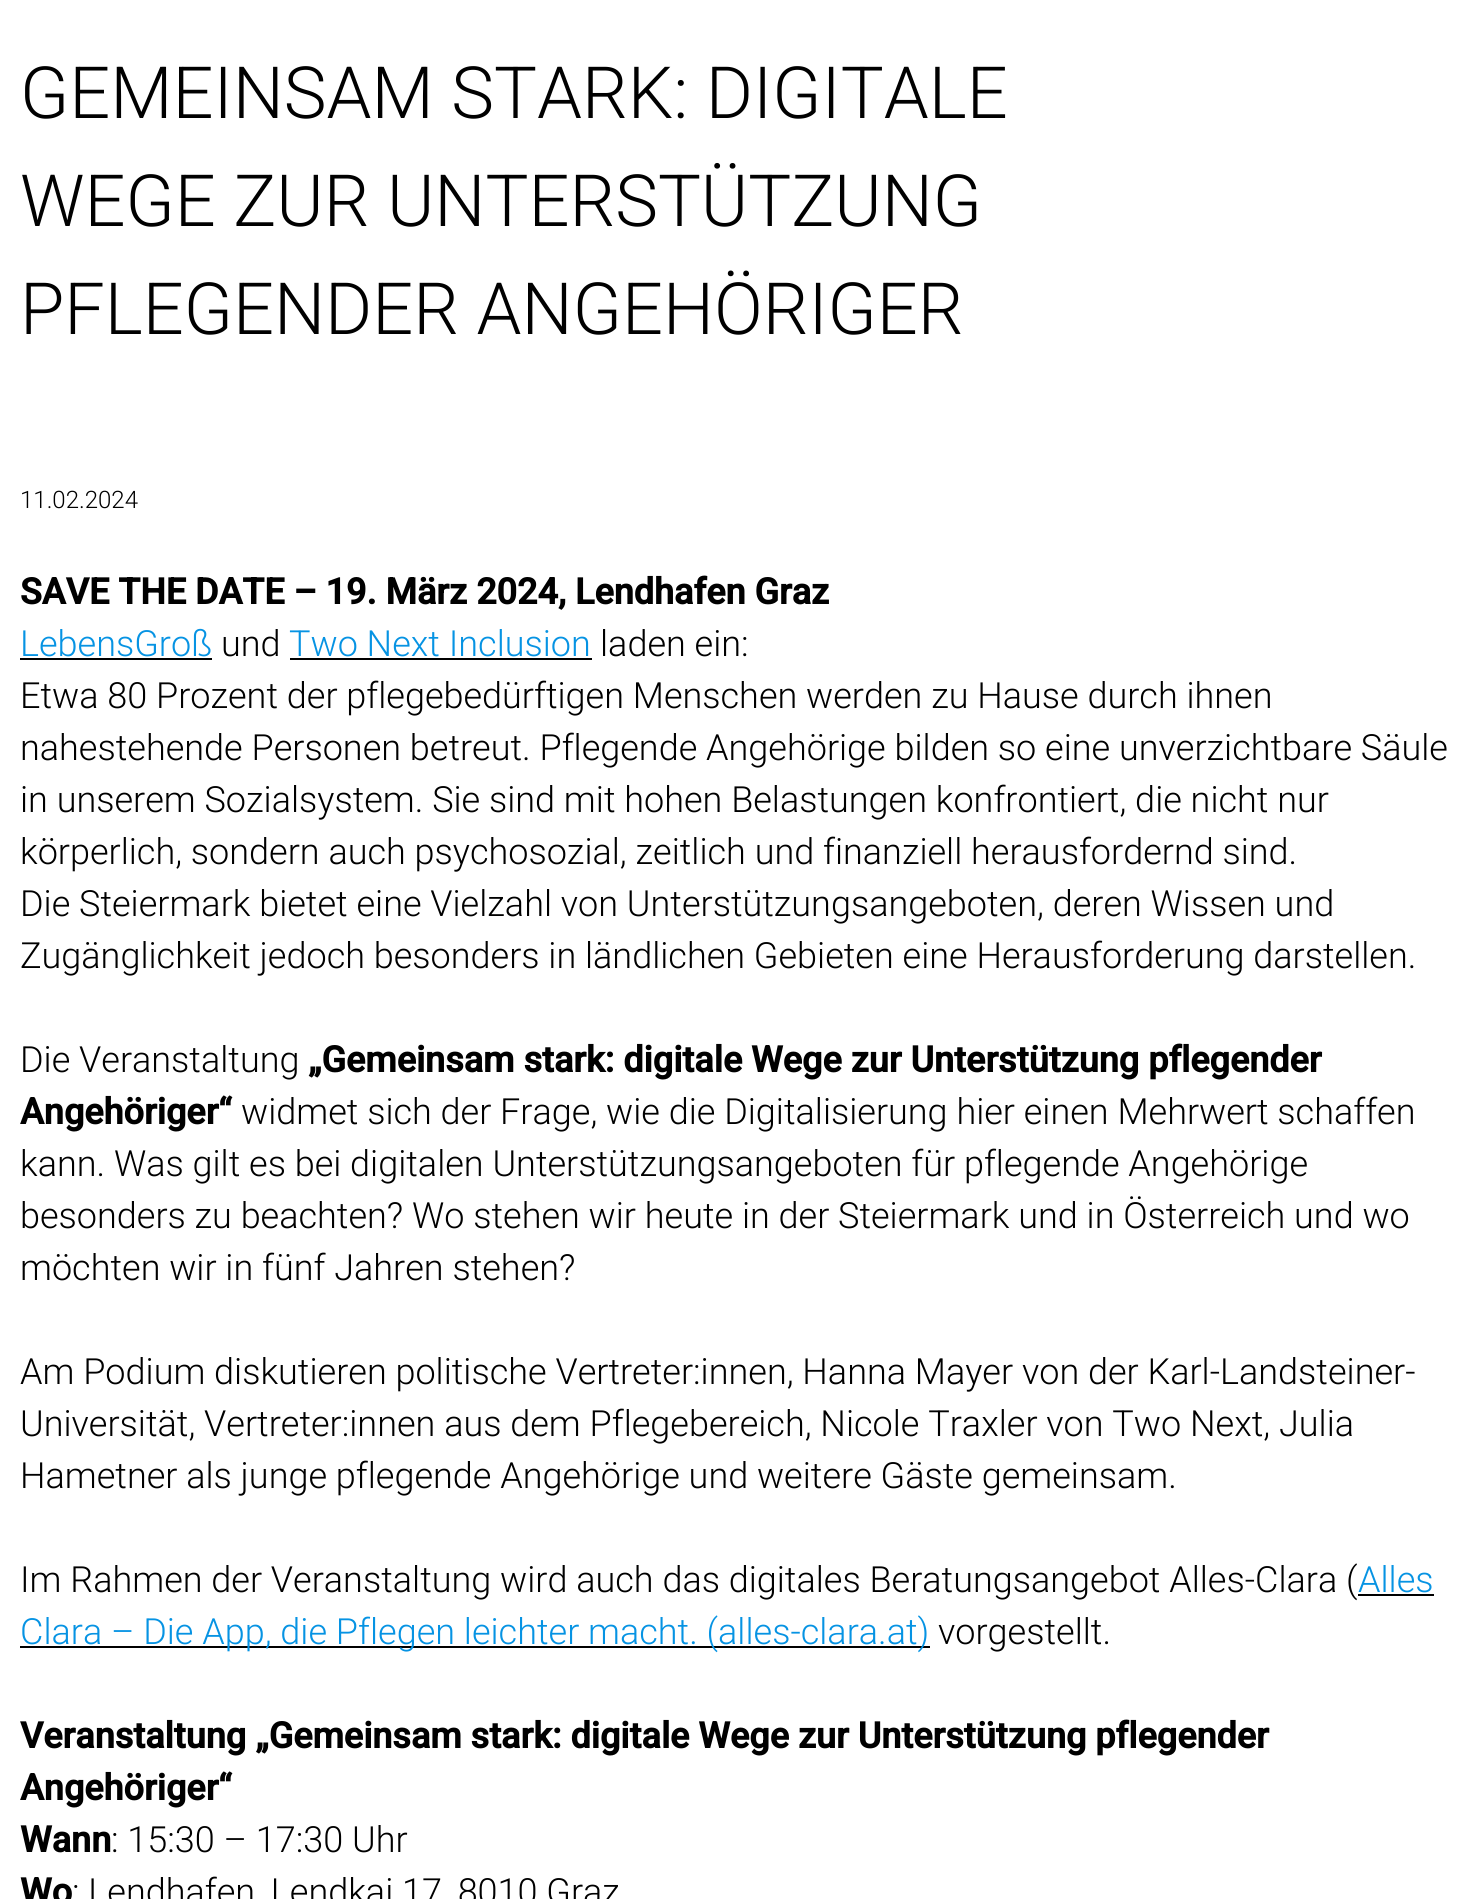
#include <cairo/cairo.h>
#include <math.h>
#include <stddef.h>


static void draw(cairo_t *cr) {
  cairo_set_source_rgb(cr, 1, 1, 1);
  cairo_paint(cr);
  cairo_set_source_rgb(cr, 0, 0, 0);
  cairo_rectangle(cr, 20, 658, 192, 2);
  cairo_fill(cr);
  cairo_rectangle(cr, 290, 658, 302, 2);
  cairo_fill(cr);
  cairo_rectangle(cr, 1358, 1594, 76, 2);
  cairo_fill(cr);
  cairo_rectangle(cr, 20, 1646, 910, 2);
  cairo_fill(cr);
  cairo_select_font_face(cr, "Roboto Light", CAIRO_FONT_SLANT_NORMAL, CAIRO_FONT_WEIGHT_NORMAL);
  cairo_set_font_size(cr, 72);
  cairo_move_to(cr, 20, 118);
  cairo_show_text(cr, "GEMEINSAM STARK: DIGITALE");
  cairo_move_to(cr, 20, 226);
  cairo_show_text(cr, "WEGE ZUR UNTERSTÜTZUNG");
  cairo_move_to(cr, 20, 334);
  cairo_show_text(cr, "PFLEGENDER ANGEHÖRIGER");
  cairo_set_font_size(cr, 24);
  cairo_move_to(cr, 20, 508);
  cairo_show_text(cr, "11.02.2024");
  cairo_select_font_face(cr, "Roboto", CAIRO_FONT_SLANT_NORMAL, CAIRO_FONT_WEIGHT_BOLD);
  cairo_set_font_size(cr, 36);
  cairo_move_to(cr, 20, 604);
  cairo_show_text(cr, "SAVE THE DATE – 19. März 2024, Lendhafen Graz");
  cairo_select_font_face(cr, "Roboto Light", CAIRO_FONT_SLANT_NORMAL, CAIRO_FONT_WEIGHT_NORMAL);
  cairo_set_source_rgb(cr, 6 / 255.0, 147 / 255.0, 227 / 255.0);
  cairo_move_to(cr, 20, 656);
  cairo_show_text(cr, "LebensGroß");
  cairo_set_source_rgb(cr, 0, 0, 0);
  cairo_move_to(cr, 221, 656);
  cairo_show_text(cr, "und");
  cairo_set_source_rgb(cr, 6 / 255.0, 147 / 255.0, 227 / 255.0);
  cairo_move_to(cr, 289, 656);
  cairo_show_text(cr, "Two Next Inclusion");
  cairo_set_source_rgb(cr, 0, 0, 0);
  cairo_move_to(cr, 600, 656);
  cairo_show_text(cr, "laden ein:");
  cairo_move_to(cr, 20, 708);
  cairo_show_text(cr, "Etwa 80 Prozent der pflegebedürftigen Menschen werden zu Hause durch ihnen");
  cairo_move_to(cr, 20, 760);
  cairo_show_text(cr, "nahestehende Personen betreut. Pflegende Angehörige bilden so eine unverzichtbare Säule");
  cairo_move_to(cr, 20, 812);
  cairo_show_text(cr, "in unserem Sozialsystem. Sie sind mit hohen Belastungen konfrontiert, die nicht nur");
  cairo_move_to(cr, 20, 864);
  cairo_show_text(cr, "körperlich, sondern auch psychosozial, zeitlich und finanziell herausfordernd sind.");
  cairo_move_to(cr, 20, 916);
  cairo_show_text(cr, "Die Steiermark bietet eine Vielzahl von Unterstützungsangeboten, deren Wissen und");
  cairo_move_to(cr, 20, 968);
  cairo_show_text(cr, "Zugänglichkeit jedoch besonders in ländlichen Gebieten eine Herausforderung darstellen.");
  cairo_move_to(cr, 20, 1072);
  cairo_show_text(cr, "Die Veranstaltung");
  cairo_select_font_face(cr, "Roboto", CAIRO_FONT_SLANT_NORMAL, CAIRO_FONT_WEIGHT_BOLD);
  cairo_move_to(cr, 308, 1072);
  cairo_show_text(cr, "„Gemeinsam stark: digitale Wege zur Unterstützung pflegender");
  cairo_move_to(cr, 20, 1124);
  cairo_show_text(cr, "Angehöriger“");
  cairo_select_font_face(cr, "Roboto Light", CAIRO_FONT_SLANT_NORMAL, CAIRO_FONT_WEIGHT_NORMAL);
  cairo_move_to(cr, 241, 1124);
  cairo_show_text(cr, "widmet sich der Frage, wie die Digitalisierung hier einen Mehrwert schaffen");
  cairo_move_to(cr, 20, 1176);
  cairo_show_text(cr, "kann. Was gilt es bei digitalen Unterstützungsangeboten für pflegende Angehörige");
  cairo_move_to(cr, 20, 1228);
  cairo_show_text(cr, "besonders zu beachten? Wo stehen wir heute in der Steiermark und in Österreich und wo");
  cairo_move_to(cr, 20, 1280);
  cairo_show_text(cr, "möchten wir in fünf Jahren stehen?");
  cairo_move_to(cr, 20, 1384);
  cairo_show_text(cr, "Am Podium diskutieren politische Vertreter:innen, Hanna Mayer von der Karl-Landsteiner-");
  cairo_move_to(cr, 20, 1436);
  cairo_show_text(cr, "Universität, Vertreter:innen aus dem Pflegebereich, Nicole Traxler von Two Next, Julia");
  cairo_move_to(cr, 20, 1488);
  cairo_show_text(cr, "Hametner als junge pflegende Angehörige und weitere Gäste gemeinsam.");
  cairo_move_to(cr, 20, 1592);
  cairo_show_text(cr, "Im Rahmen der Veranstaltung wird auch das digitales Beratungsangebot Alles-Clara (");
  cairo_set_source_rgb(cr, 6 / 255.0, 147 / 255.0, 227 / 255.0);
  cairo_move_to(cr, 1358, 1592);
  cairo_show_text(cr, "Alles");
  cairo_move_to(cr, 20, 1644);
  cairo_show_text(cr, "Clara – Die App, die Pflegen leichter macht. (alles-clara.at)");
  cairo_set_source_rgb(cr, 0, 0, 0);
  cairo_move_to(cr, 938, 1644);
  cairo_show_text(cr, "vorgestellt.");
  cairo_select_font_face(cr, "Roboto", CAIRO_FONT_SLANT_NORMAL, CAIRO_FONT_WEIGHT_BOLD);
  cairo_move_to(cr, 20, 1748);
  cairo_show_text(cr, "Veranstaltung „Gemeinsam stark: digitale Wege zur Unterstützung pflegender");
  cairo_move_to(cr, 20, 1800);
  cairo_show_text(cr, "Angehöriger“");
  cairo_move_to(cr, 20, 1852);
  cairo_show_text(cr, "Wann");
  cairo_select_font_face(cr, "Roboto Light", CAIRO_FONT_SLANT_NORMAL, CAIRO_FONT_WEIGHT_NORMAL);
  cairo_move_to(cr, 111, 1852);
  cairo_show_text(cr, ": 15:30 – 17:30 Uhr");
  cairo_select_font_face(cr, "Roboto", CAIRO_FONT_SLANT_NORMAL, CAIRO_FONT_WEIGHT_BOLD);
  cairo_move_to(cr, 20, 1904);
  cairo_show_text(cr, "Wo");
  cairo_select_font_face(cr, "Roboto Light", CAIRO_FONT_SLANT_NORMAL, CAIRO_FONT_WEIGHT_NORMAL);
  cairo_move_to(cr, 72, 1904);
  cairo_show_text(cr, ": Lendhafen, Lendkai 17, 8010 Graz");
}

int main(void) {
  cairo_surface_t *surface = cairo_image_surface_create(CAIRO_FORMAT_RGB24, 1475, 1899);
  cairo_t *cr = cairo_create(surface);
  cairo_font_options_t *options = cairo_font_options_create();
  cairo_font_options_set_hint_metrics(options, CAIRO_HINT_METRICS_OFF);
  cairo_font_options_set_hint_style(options, CAIRO_HINT_STYLE_NONE);
  cairo_set_font_options(cr, options);
  cairo_set_miter_limit(cr, 4);
  draw(cr);
  cairo_surface_write_to_png(surface, "out.png");
  cairo_font_options_destroy(options);
  cairo_destroy(cr);
  cairo_surface_destroy(surface);
  return 0;
}
